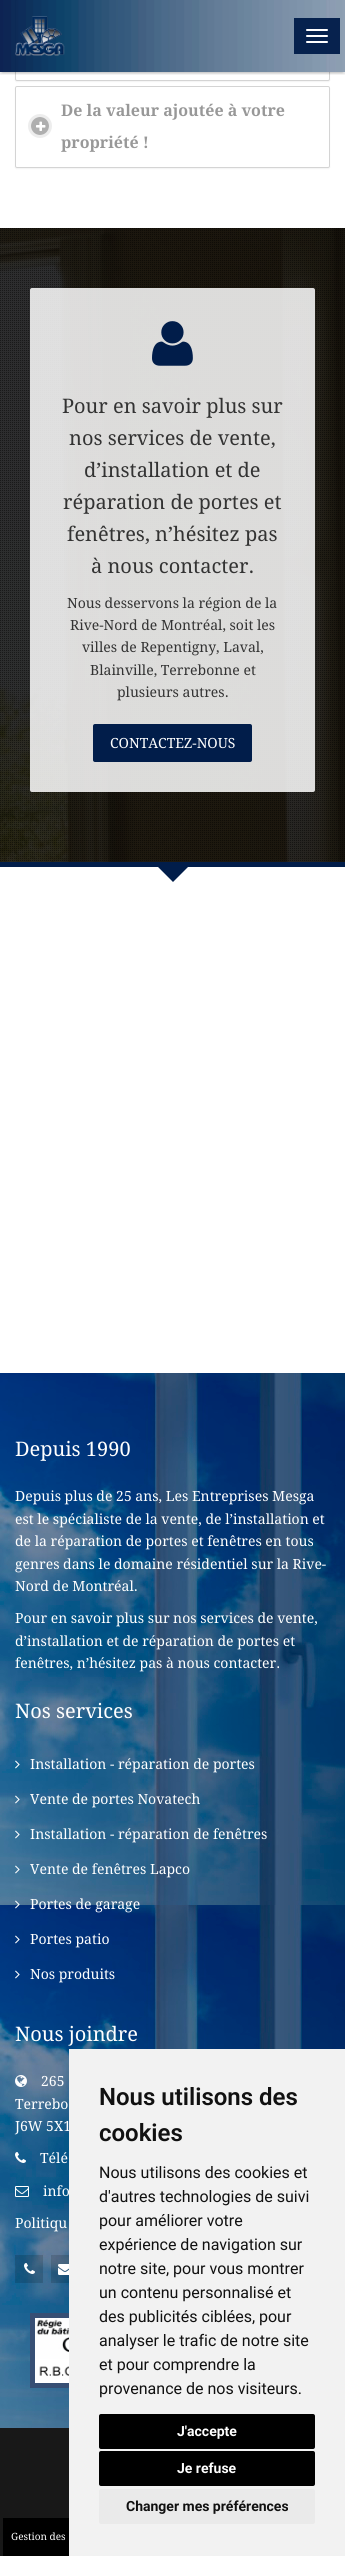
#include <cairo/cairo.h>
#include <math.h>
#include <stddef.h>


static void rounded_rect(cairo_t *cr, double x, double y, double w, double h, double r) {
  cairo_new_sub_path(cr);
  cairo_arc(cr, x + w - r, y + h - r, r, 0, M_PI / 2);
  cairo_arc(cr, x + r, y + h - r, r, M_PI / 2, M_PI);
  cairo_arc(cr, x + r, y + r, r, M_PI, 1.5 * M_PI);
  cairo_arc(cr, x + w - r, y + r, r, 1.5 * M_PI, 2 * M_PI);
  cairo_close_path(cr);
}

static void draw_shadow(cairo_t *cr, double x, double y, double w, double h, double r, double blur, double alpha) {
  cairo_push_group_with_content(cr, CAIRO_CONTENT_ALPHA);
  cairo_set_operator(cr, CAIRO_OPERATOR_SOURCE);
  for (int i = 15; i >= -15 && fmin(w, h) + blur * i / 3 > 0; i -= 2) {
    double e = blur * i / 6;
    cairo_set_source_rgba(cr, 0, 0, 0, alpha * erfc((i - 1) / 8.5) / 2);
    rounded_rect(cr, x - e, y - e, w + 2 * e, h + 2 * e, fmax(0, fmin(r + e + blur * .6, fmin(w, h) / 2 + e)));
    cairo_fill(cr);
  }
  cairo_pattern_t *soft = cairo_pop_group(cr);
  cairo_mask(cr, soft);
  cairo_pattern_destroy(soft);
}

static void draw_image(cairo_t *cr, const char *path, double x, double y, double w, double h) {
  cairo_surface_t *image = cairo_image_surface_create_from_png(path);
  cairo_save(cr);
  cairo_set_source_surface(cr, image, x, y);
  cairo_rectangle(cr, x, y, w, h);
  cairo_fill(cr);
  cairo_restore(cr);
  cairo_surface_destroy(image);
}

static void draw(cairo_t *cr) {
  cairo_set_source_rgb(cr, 1, 1, 1);
  cairo_paint(cr);
  cairo_set_source_rgb(cr, 0, 0, 0);
  draw_shadow(cr, 15, 0, 315, 82, 2, 0.5, 0.05);
  cairo_set_source_rgb(cr, 1, 1, 1);
  rounded_rect(cr, 15.5, -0.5, 314, 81, 1.5);
  cairo_fill_preserve(cr);
  cairo_set_source_rgb(cr, 212 / 255.0, 212 / 255.0, 212 / 255.0);
  cairo_set_line_width(cr, 1);
  cairo_stroke(cr);
  cairo_arc(cr, 40, 39, 10.5, 0, 2 * M_PI);
  cairo_set_source_rgb(cr, 237 / 255.0, 237 / 255.0, 237 / 255.0);
  cairo_set_line_width(cr, 3);
  cairo_stroke(cr);
  draw_image(cr, "images/3.png", 36, 34, 10, 10);
  cairo_save(cr);
  cairo_rectangle(cr, 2, 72, 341, 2);
  cairo_clip(cr);
  cairo_set_source_rgb(cr, 0, 0, 0);
  draw_shadow(cr, 3, 6, 339, 66, 0, 1.5, 0.19);
  cairo_restore(cr);
  cairo_save(cr);
  cairo_rectangle(cr, 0, 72, 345, 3);
  cairo_clip(cr);
  cairo_set_source_rgb(cr, 0, 0, 0);
  draw_shadow(cr, 0, 2, 345, 72, 0, 1, 0.14);
  cairo_restore(cr);
  draw_image(cr, "images/1.png", 0, 0, 345, 72);
  draw_image(cr, "images/2.png", 15, 16, 50, 40);
  cairo_set_source_rgba(cr, 1 / 255.0, 29 / 255.0, 74 / 255.0, 0.95);
  cairo_rectangle(cr, 294, 18, 46, 36);
  cairo_fill(cr);
  cairo_set_source_rgb(cr, 1, 1, 1);
  rounded_rect(cr, 306, 29, 22, 2, 1);
  cairo_fill(cr);
  rounded_rect(cr, 306, 35, 22, 2, 1);
  cairo_fill(cr);
  rounded_rect(cr, 306, 41, 22, 2, 1);
  cairo_fill(cr);
  cairo_set_source_rgb(cr, 0, 0, 0);
  draw_shadow(cr, 15, 87, 315, 82, 2, 0.5, 0.05);
  cairo_set_source_rgb(cr, 1, 1, 1);
  rounded_rect(cr, 15.5, 86.5, 314, 81, 1.5);
  cairo_fill_preserve(cr);
  cairo_set_source_rgb(cr, 212 / 255.0, 212 / 255.0, 212 / 255.0);
  cairo_set_line_width(cr, 1);
  cairo_stroke(cr);
  cairo_arc(cr, 40, 126, 10.5, 0, 2 * M_PI);
  cairo_set_source_rgb(cr, 237 / 255.0, 237 / 255.0, 237 / 255.0);
  cairo_set_line_width(cr, 3);
  cairo_stroke(cr);
  cairo_set_source_rgb(cr, 175 / 255.0, 175 / 255.0, 175 / 255.0);
  cairo_arc(cr, 40, 126, 9, 0, 2 * M_PI);
  cairo_fill(cr);
  draw_image(cr, "images/3.png", 36, 121, 10, 10);
  draw_image(cr, "images/4.png", 0, 228, 345, 634);
  draw_image(cr, "images/5.png", 0, 228, 345, 634);
  cairo_set_source_rgba(cr, 1, 1, 1, 0.85);
  rounded_rect(cr, 30, 288, 285, 504, 2);
  cairo_fill(cr);
  draw_image(cr, "images/6.png", 152, 321, 41, 45);
  cairo_set_source_rgb(cr, 1 / 255.0, 29 / 255.0, 74 / 255.0);
  rounded_rect(cr, 93, 724, 159, 38, 2);
  cairo_fill(cr);
  cairo_rectangle(cr, 0, 862, 345, 5);
  cairo_fill(cr);
  cairo_new_path(cr);
  cairo_move_to(cr, 158, 867);
  cairo_line_to(cr, 188, 867);
  cairo_line_to(cr, 173, 882);
  cairo_close_path(cr);
  cairo_fill(cr);
  draw_image(cr, "images/7.png", 0, 1373, 345, 1055);
  draw_image(cr, "images/8.png", 15, 1760, 5, 9);
  draw_image(cr, "images/9.png", 15, 1795, 5, 9);
  draw_image(cr, "images/10.png", 15, 1830, 5, 9);
  draw_image(cr, "images/11.png", 15, 1865, 5, 9);
  draw_image(cr, "images/12.png", 15, 1900, 5, 9);
  draw_image(cr, "images/13.png", 15, 1935, 5, 9);
  draw_image(cr, "images/14.png", 15, 1970, 5, 9);
  draw_image(cr, "images/15.png", 15, 2075, 12, 12);
  draw_image(cr, "images/16.png", 15, 2152, 11, 11);
  draw_image(cr, "images/17.png", 15, 2186, 14, 11);
  cairo_set_source_rgba(cr, 0, 0, 0, 0.15);
  cairo_rectangle(cr, 15, 2255, 28, 28);
  cairo_fill(cr);
  draw_image(cr, "images/18.png", 24, 2263, 11, 11);
  cairo_rectangle(cr, 51, 2255, 18, 28);
  cairo_fill(cr);
  draw_image(cr, "images/19.png", 58, 2264, 11, 11);
  cairo_set_source_rgb(cr, 55 / 255.0, 79 / 255.0, 116 / 255.0);
  cairo_rectangle(cr, 30, 2313, 39, 75);
  cairo_fill(cr);
  draw_image(cr, "images/20.png", 35, 2318, 34, 65);
  cairo_set_source_rgb(cr, 24 / 255.0, 24 / 255.0, 24 / 255.0);
  cairo_rectangle(cr, 0, 2428, 69, 128);
  cairo_fill(cr);
  cairo_set_source_rgb(cr, 0, 0, 0);
  cairo_rectangle(cr, 3, 2518, 66, 38);
  cairo_fill(cr);
  cairo_select_font_face(cr, "Droid Serif", CAIRO_FONT_SLANT_NORMAL, CAIRO_FONT_WEIGHT_BOLD);
  cairo_set_font_size(cr, 16);
  cairo_set_source_rgb(cr, 152 / 255.0, 152 / 255.0, 152 / 255.0);
  cairo_move_to(cr, 61, 116);
  cairo_show_text(cr, "De la valeur ajoutée à votre");
  cairo_move_to(cr, 61, 148);
  cairo_show_text(cr, "propriété !");
  cairo_select_font_face(cr, "Droid Serif", CAIRO_FONT_SLANT_NORMAL, CAIRO_FONT_WEIGHT_NORMAL);
  cairo_set_font_size(cr, 20);
  cairo_set_source_rgb(cr, 51 / 255.0, 51 / 255.0, 51 / 255.0);
  cairo_move_to(cr, 62, 413);
  cairo_show_text(cr, "Pour en savoir plus sur");
  cairo_move_to(cr, 69, 445);
  cairo_show_text(cr, "nos services de vente,");
  cairo_move_to(cr, 84, 477);
  cairo_show_text(cr, "d’installation et de");
  cairo_move_to(cr, 63, 509);
  cairo_show_text(cr, "réparation de portes et");
  cairo_move_to(cr, 67, 541);
  cairo_show_text(cr, "fenêtres, n’hésitez pas");
  cairo_move_to(cr, 91, 573);
  cairo_show_text(cr, "à nous contacter.");
  cairo_set_font_size(cr, 14);
  cairo_move_to(cr, 67, 608);
  cairo_show_text(cr, "Nous desservons la région de la");
  cairo_move_to(cr, 70, 630);
  cairo_show_text(cr, "Rive-Nord de Montréal, soit les");
  cairo_move_to(cr, 82, 652);
  cairo_show_text(cr, "villes de Repentigny, Laval,");
  cairo_move_to(cr, 90, 675);
  cairo_show_text(cr, "Blainville, Terrebonne et");
  cairo_move_to(cr, 117, 697);
  cairo_show_text(cr, "plusieurs autres.");
  cairo_set_source_rgb(cr, 1, 1, 1);
  cairo_move_to(cr, 110, 748);
  cairo_show_text(cr, "CONTACTEZ-NOUS");
  cairo_set_font_size(cr, 20);
  cairo_move_to(cr, 15, 1456);
  cairo_show_text(cr, "Depuis 1990");
  cairo_set_font_size(cr, 14);
  cairo_move_to(cr, 15, 1501);
  cairo_show_text(cr, "Depuis plus de 25 ans, Les Entreprises Mesga");
  cairo_move_to(cr, 15, 1524);
  cairo_show_text(cr, "est le spécialiste de la vente, de l’installation et");
  cairo_move_to(cr, 15, 1546);
  cairo_show_text(cr, "de la réparation de portes et fenêtres en tous");
  cairo_move_to(cr, 15, 1569);
  cairo_show_text(cr, "genres dans le domaine résidentiel sur la Rive-");
  cairo_move_to(cr, 15, 1591);
  cairo_show_text(cr, "Nord de Montréal.");
  cairo_move_to(cr, 15, 1623);
  cairo_show_text(cr, "Pour en savoir plus sur nos services de vente,");
  cairo_move_to(cr, 15, 1646);
  cairo_show_text(cr, "d’installation et de réparation de portes et");
  cairo_move_to(cr, 15, 1668);
  cairo_show_text(cr, "fenêtres, n’hésitez pas à nous contacter.");
  cairo_set_font_size(cr, 20);
  cairo_move_to(cr, 15, 1718);
  cairo_show_text(cr, "Nos services");
  cairo_set_font_size(cr, 14);
  cairo_move_to(cr, 30, 1769);
  cairo_show_text(cr, "Installation - réparation de portes");
  cairo_move_to(cr, 30, 1804);
  cairo_show_text(cr, "Vente de portes Novatech");
  cairo_move_to(cr, 30, 1839);
  cairo_show_text(cr, "Installation - réparation de fenêtres");
  cairo_move_to(cr, 30, 1874);
  cairo_show_text(cr, "Vente de fenêtres Lapco");
  cairo_move_to(cr, 30, 1909);
  cairo_show_text(cr, "Portes de garage");
  cairo_move_to(cr, 30, 1944);
  cairo_show_text(cr, "Portes patio");
  cairo_move_to(cr, 30, 1979);
  cairo_show_text(cr, "Nos produits");
  cairo_set_font_size(cr, 20);
  cairo_move_to(cr, 15, 2041);
  cairo_show_text(cr, "Nous joindre");
  cairo_set_font_size(cr, 14);
  cairo_move_to(cr, 41, 2086);
  cairo_show_text(cr, "265");
  cairo_move_to(cr, 15, 2109);
  cairo_show_text(cr, "Terrebo");
  cairo_move_to(cr, 15, 2131);
  cairo_show_text(cr, "J6W 5X1");
  cairo_move_to(cr, 40, 2163);
  cairo_show_text(cr, "Télé");
  cairo_move_to(cr, 43, 2196);
  cairo_show_text(cr, "info");
  cairo_move_to(cr, 15, 2228);
  cairo_show_text(cr, "Politiqu");
  cairo_set_source_rgb(cr, 242 / 255.0, 242 / 255.0, 242 / 255.0);
  cairo_rectangle(cr, 69, 2049, 276, 507);
  cairo_fill(cr);
  cairo_select_font_face(cr, "Roboto SemiBold", CAIRO_FONT_SLANT_NORMAL, CAIRO_FONT_WEIGHT_NORMAL);
  cairo_set_font_size(cr, 24);
  cairo_set_source_rgb(cr, 17 / 255.0, 17 / 255.0, 17 / 255.0);
  cairo_move_to(cr, 99, 2105);
  cairo_show_text(cr, "Nous utilisons des");
  cairo_move_to(cr, 99, 2141);
  cairo_show_text(cr, "cookies");
  cairo_select_font_face(cr, "Roboto", CAIRO_FONT_SLANT_NORMAL, CAIRO_FONT_WEIGHT_NORMAL);
  cairo_set_font_size(cr, 16);
  cairo_move_to(cr, 99, 2178);
  cairo_show_text(cr, "Nous utilisons des cookies et");
  cairo_move_to(cr, 99, 2202);
  cairo_show_text(cr, "d'autres technologies de suivi");
  cairo_move_to(cr, 99, 2226);
  cairo_show_text(cr, "pour améliorer votre");
  cairo_move_to(cr, 99, 2250);
  cairo_show_text(cr, "expérience de navigation sur");
  cairo_move_to(cr, 99, 2274);
  cairo_show_text(cr, "notre site, pour vous montrer");
  cairo_move_to(cr, 99, 2298);
  cairo_show_text(cr, "un contenu personnalisé et");
  cairo_move_to(cr, 99, 2322);
  cairo_show_text(cr, "des publicités ciblées, pour");
  cairo_move_to(cr, 99, 2346);
  cairo_show_text(cr, "analyser le trafic de notre site");
  cairo_move_to(cr, 99, 2370);
  cairo_show_text(cr, "et pour comprendre la");
  cairo_move_to(cr, 99, 2394);
  cairo_show_text(cr, "provenance de nos visiteurs.");
  cairo_set_source_rgb(cr, 0, 0, 0);
  rounded_rect(cr, 99, 2414, 216, 35, 2);
  cairo_fill(cr);
  cairo_select_font_face(cr, "Roboto", CAIRO_FONT_SLANT_NORMAL, CAIRO_FONT_WEIGHT_BOLD);
  cairo_set_font_size(cr, 14);
  cairo_set_source_rgb(cr, 1, 1, 1);
  cairo_move_to(cr, 177, 2436);
  cairo_show_text(cr, "J'accepte");
  cairo_set_source_rgb(cr, 0, 0, 0);
  rounded_rect(cr, 99, 2451, 216, 35, 2);
  cairo_fill(cr);
  cairo_set_source_rgb(cr, 1, 1, 1);
  cairo_move_to(cr, 177, 2473);
  cairo_show_text(cr, "Je refuse");
  cairo_set_source_rgb(cr, 234 / 255.0, 234 / 255.0, 234 / 255.0);
  rounded_rect(cr, 99, 2489, 216, 35, 2);
  cairo_fill(cr);
  cairo_set_source_rgb(cr, 17 / 255.0, 17 / 255.0, 17 / 255.0);
  cairo_move_to(cr, 126, 2511);
  cairo_show_text(cr, "Changer mes préférences");
  cairo_select_font_face(cr, "Droid Serif", CAIRO_FONT_SLANT_NORMAL, CAIRO_FONT_WEIGHT_NORMAL);
  cairo_set_font_size(cr, 10);
  cairo_set_source_rgb(cr, 1, 1, 1);
  cairo_move_to(cr, 11, 2540);
  cairo_show_text(cr, "Gestion des");
}

int main(void) {
  cairo_surface_t *surface = cairo_image_surface_create(CAIRO_FORMAT_RGB24, 345, 2556);
  cairo_t *cr = cairo_create(surface);
  cairo_font_options_t *options = cairo_font_options_create();
  cairo_font_options_set_hint_metrics(options, CAIRO_HINT_METRICS_OFF);
  cairo_font_options_set_hint_style(options, CAIRO_HINT_STYLE_NONE);
  cairo_set_font_options(cr, options);
  cairo_set_miter_limit(cr, 4);
  draw(cr);
  cairo_surface_write_to_png(surface, "out.png");
  cairo_font_options_destroy(options);
  cairo_destroy(cr);
  cairo_surface_destroy(surface);
  return 0;
}
